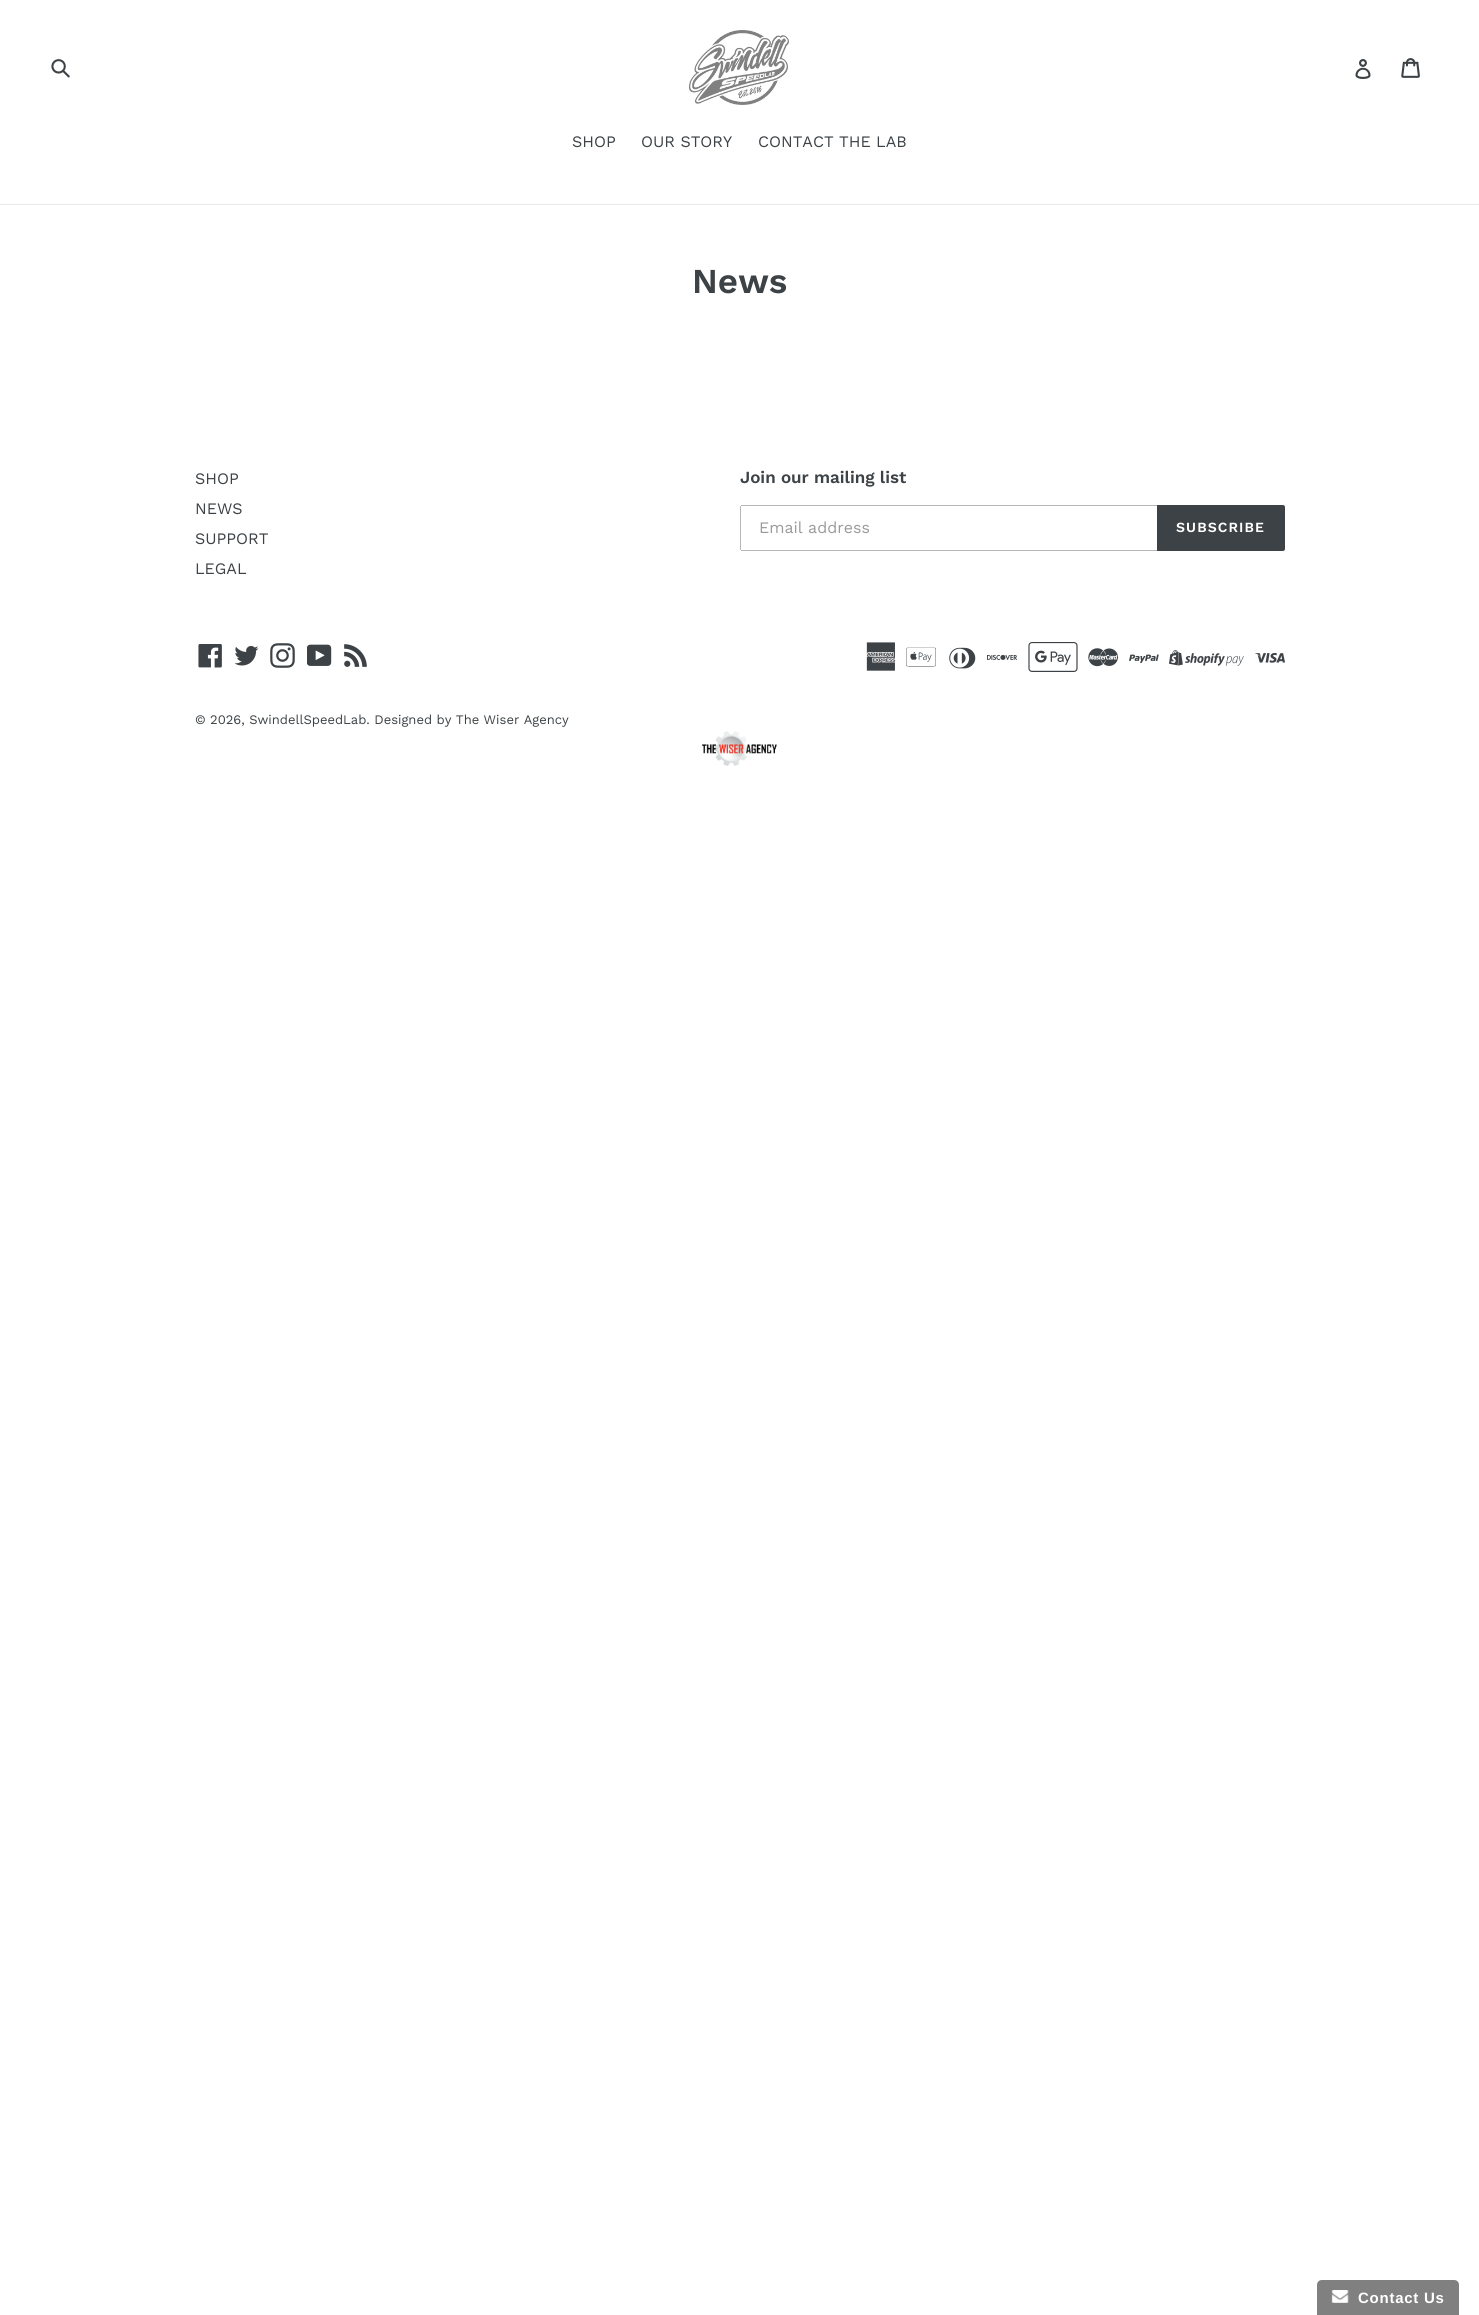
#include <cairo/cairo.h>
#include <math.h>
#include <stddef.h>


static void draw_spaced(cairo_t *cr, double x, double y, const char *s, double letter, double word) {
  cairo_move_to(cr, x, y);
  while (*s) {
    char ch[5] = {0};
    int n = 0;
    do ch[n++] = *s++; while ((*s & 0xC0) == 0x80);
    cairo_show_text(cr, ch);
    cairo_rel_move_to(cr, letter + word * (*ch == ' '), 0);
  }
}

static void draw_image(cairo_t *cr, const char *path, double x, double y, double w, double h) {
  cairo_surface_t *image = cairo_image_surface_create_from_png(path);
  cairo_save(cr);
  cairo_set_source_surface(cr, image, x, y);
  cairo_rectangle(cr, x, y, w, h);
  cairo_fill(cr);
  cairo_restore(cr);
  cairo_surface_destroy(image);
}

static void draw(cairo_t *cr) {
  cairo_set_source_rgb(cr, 1, 1, 1);
  cairo_paint(cr);
  draw_image(cr, "images/1.png", 51, 59, 19, 19);
  draw_image(cr, "images/2.png", 689, 30, 100, 75);
  draw_image(cr, "images/3.png", 1355, 59, 16, 20);
  draw_image(cr, "images/4.png", 1401, 58, 19, 20);
  cairo_set_source_rgb(cr, 232 / 255.0, 233 / 255.0, 235 / 255.0);
  cairo_rectangle(cr, 0, 204, 1479, 1);
  cairo_fill(cr);
  cairo_set_source_rgb(cr, 182 / 255.0, 182 / 255.0, 182 / 255.0);
  cairo_rectangle(cr, 741, 505, 416, 1);
  cairo_fill(cr);
  cairo_rectangle(cr, 741, 550, 416, 1);
  cairo_fill(cr);
  cairo_rectangle(cr, 740, 506, 1, 44);
  cairo_fill(cr);
  cairo_set_source_rgb(cr, 61 / 255.0, 66 / 255.0, 70 / 255.0);
  cairo_new_path(cr);
  cairo_move_to(cr, 1157, 505);
  cairo_line_to(cr, 1283, 505);
  cairo_curve_to(cr, 1284, 505, 1285, 506, 1285, 507);
  cairo_line_to(cr, 1285, 549);
  cairo_curve_to(cr, 1285, 550, 1284, 551, 1283, 551);
  cairo_line_to(cr, 1157, 551);
  cairo_close_path(cr);
  cairo_fill(cr);
  draw_image(cr, "images/5.png", 198, 644, 24, 24);
  draw_image(cr, "images/6.png", 234, 646, 25, 20);
  draw_image(cr, "images/7.png", 270, 643, 25, 25);
  draw_image(cr, "images/8.png", 307, 644, 25, 22);
  draw_image(cr, "images/9.png", 344, 644, 23, 23);
  draw_image(cr, "images/10.png", 866, 642, 30, 29);
  draw_image(cr, "images/11.png", 906, 647, 30, 20);
  draw_image(cr, "images/12.png", 949, 647, 27, 22);
  draw_image(cr, "images/13.png", 987, 654, 30, 6);
  draw_image(cr, "images/14.png", 1028, 642, 50, 30);
  draw_image(cr, "images/15.png", 1088, 648, 30, 19);
  draw_image(cr, "images/16.png", 1129, 654, 30, 9);
  draw_image(cr, "images/17.png", 1169, 650, 75, 16);
  draw_image(cr, "images/18.png", 1255, 653, 30, 10);
  draw_image(cr, "images/19.png", 702, 731, 75, 35);
  cairo_set_source_rgb(cr, 128 / 255.0, 128 / 255.0, 128 / 255.0);
  cairo_new_path(cr);
  cairo_move_to(cr, 1322, 2280);
  cairo_line_to(cr, 1454, 2280);
  cairo_curve_to(cr, 1457, 2280, 1459, 2282, 1459, 2285);
  cairo_line_to(cr, 1459, 2315);
  cairo_line_to(cr, 1317, 2315);
  cairo_line_to(cr, 1317, 2285);
  cairo_curve_to(cr, 1317, 2282, 1319, 2280, 1322, 2280);
  cairo_close_path(cr);
  cairo_fill(cr);
  draw_image(cr, "images/20.png", 1331, 2290, 18, 13);
  cairo_select_font_face(cr, "Work Sans", CAIRO_FONT_SLANT_NORMAL, CAIRO_FONT_WEIGHT_NORMAL);
  cairo_set_font_size(cr, 16);
  cairo_set_source_rgb(cr, 61 / 255.0, 66 / 255.0, 70 / 255.0);
  cairo_move_to(cr, 572, 147);
  cairo_show_text(cr, "SHOP");
  cairo_move_to(cr, 641, 147);
  cairo_show_text(cr, "OUR STORY");
  cairo_move_to(cr, 758, 147);
  cairo_show_text(cr, "CONTACT THE LAB");
  cairo_select_font_face(cr, "Work Sans SemiBold", CAIRO_FONT_SLANT_NORMAL, CAIRO_FONT_WEIGHT_NORMAL);
  cairo_set_font_size(cr, 35);
  cairo_move_to(cr, 692, 293);
  cairo_show_text(cr, "News");
  cairo_select_font_face(cr, "Work Sans", CAIRO_FONT_SLANT_NORMAL, CAIRO_FONT_WEIGHT_NORMAL);
  cairo_set_font_size(cr, 16);
  cairo_move_to(cr, 195, 484);
  cairo_show_text(cr, "SHOP");
  cairo_move_to(cr, 195, 514);
  cairo_show_text(cr, "NEWS");
  cairo_move_to(cr, 195, 544);
  cairo_show_text(cr, "SUPPORT");
  cairo_move_to(cr, 195, 574);
  cairo_show_text(cr, "LEGAL");
  cairo_select_font_face(cr, "Work Sans SemiBold", CAIRO_FONT_SLANT_NORMAL, CAIRO_FONT_WEIGHT_NORMAL);
  cairo_set_font_size(cr, 17);
  cairo_move_to(cr, 740, 483);
  cairo_show_text(cr, "Join our mailing list");
  cairo_select_font_face(cr, "Work Sans", CAIRO_FONT_SLANT_NORMAL, CAIRO_FONT_WEIGHT_NORMAL);
  cairo_set_font_size(cr, 16);
  cairo_set_source_rgb(cr, 154 / 255.0, 154 / 255.0, 154 / 255.0);
  cairo_move_to(cr, 759, 533);
  cairo_show_text(cr, "Email address");
  cairo_select_font_face(cr, "Work Sans SemiBold", CAIRO_FONT_SLANT_NORMAL, CAIRO_FONT_WEIGHT_NORMAL);
  cairo_set_font_size(cr, 14);
  cairo_set_source_rgb(cr, 1, 1, 1);
  draw_spaced(cr, 1176, 532, "SUBSCRIBE", 1.1, 0);
  cairo_select_font_face(cr, "Work Sans", CAIRO_FONT_SLANT_NORMAL, CAIRO_FONT_WEIGHT_NORMAL);
  cairo_set_font_size(cr, 13);
  cairo_set_source_rgb(cr, 61 / 255.0, 66 / 255.0, 70 / 255.0);
  cairo_move_to(cr, 195, 724);
  cairo_show_text(cr, "© 2026, SwindellSpeedLab. Designed by The Wiser Agency");
  cairo_select_font_face(cr, "Liberation Sans", CAIRO_FONT_SLANT_NORMAL, CAIRO_FONT_WEIGHT_BOLD);
  cairo_set_font_size(cr, 15);
  cairo_set_source_rgb(cr, 1, 1, 1);
  draw_spaced(cr, 1358, 2303, "Contact Us", 0.75, 0);
}

int main(void) {
  cairo_surface_t *surface = cairo_image_surface_create(CAIRO_FORMAT_RGB24, 1479, 2315);
  cairo_t *cr = cairo_create(surface);
  cairo_font_options_t *options = cairo_font_options_create();
  cairo_font_options_set_hint_metrics(options, CAIRO_HINT_METRICS_OFF);
  cairo_font_options_set_hint_style(options, CAIRO_HINT_STYLE_NONE);
  cairo_set_font_options(cr, options);
  cairo_set_miter_limit(cr, 4);
  draw(cr);
  cairo_surface_write_to_png(surface, "out.png");
  cairo_font_options_destroy(options);
  cairo_destroy(cr);
  cairo_surface_destroy(surface);
  return 0;
}
